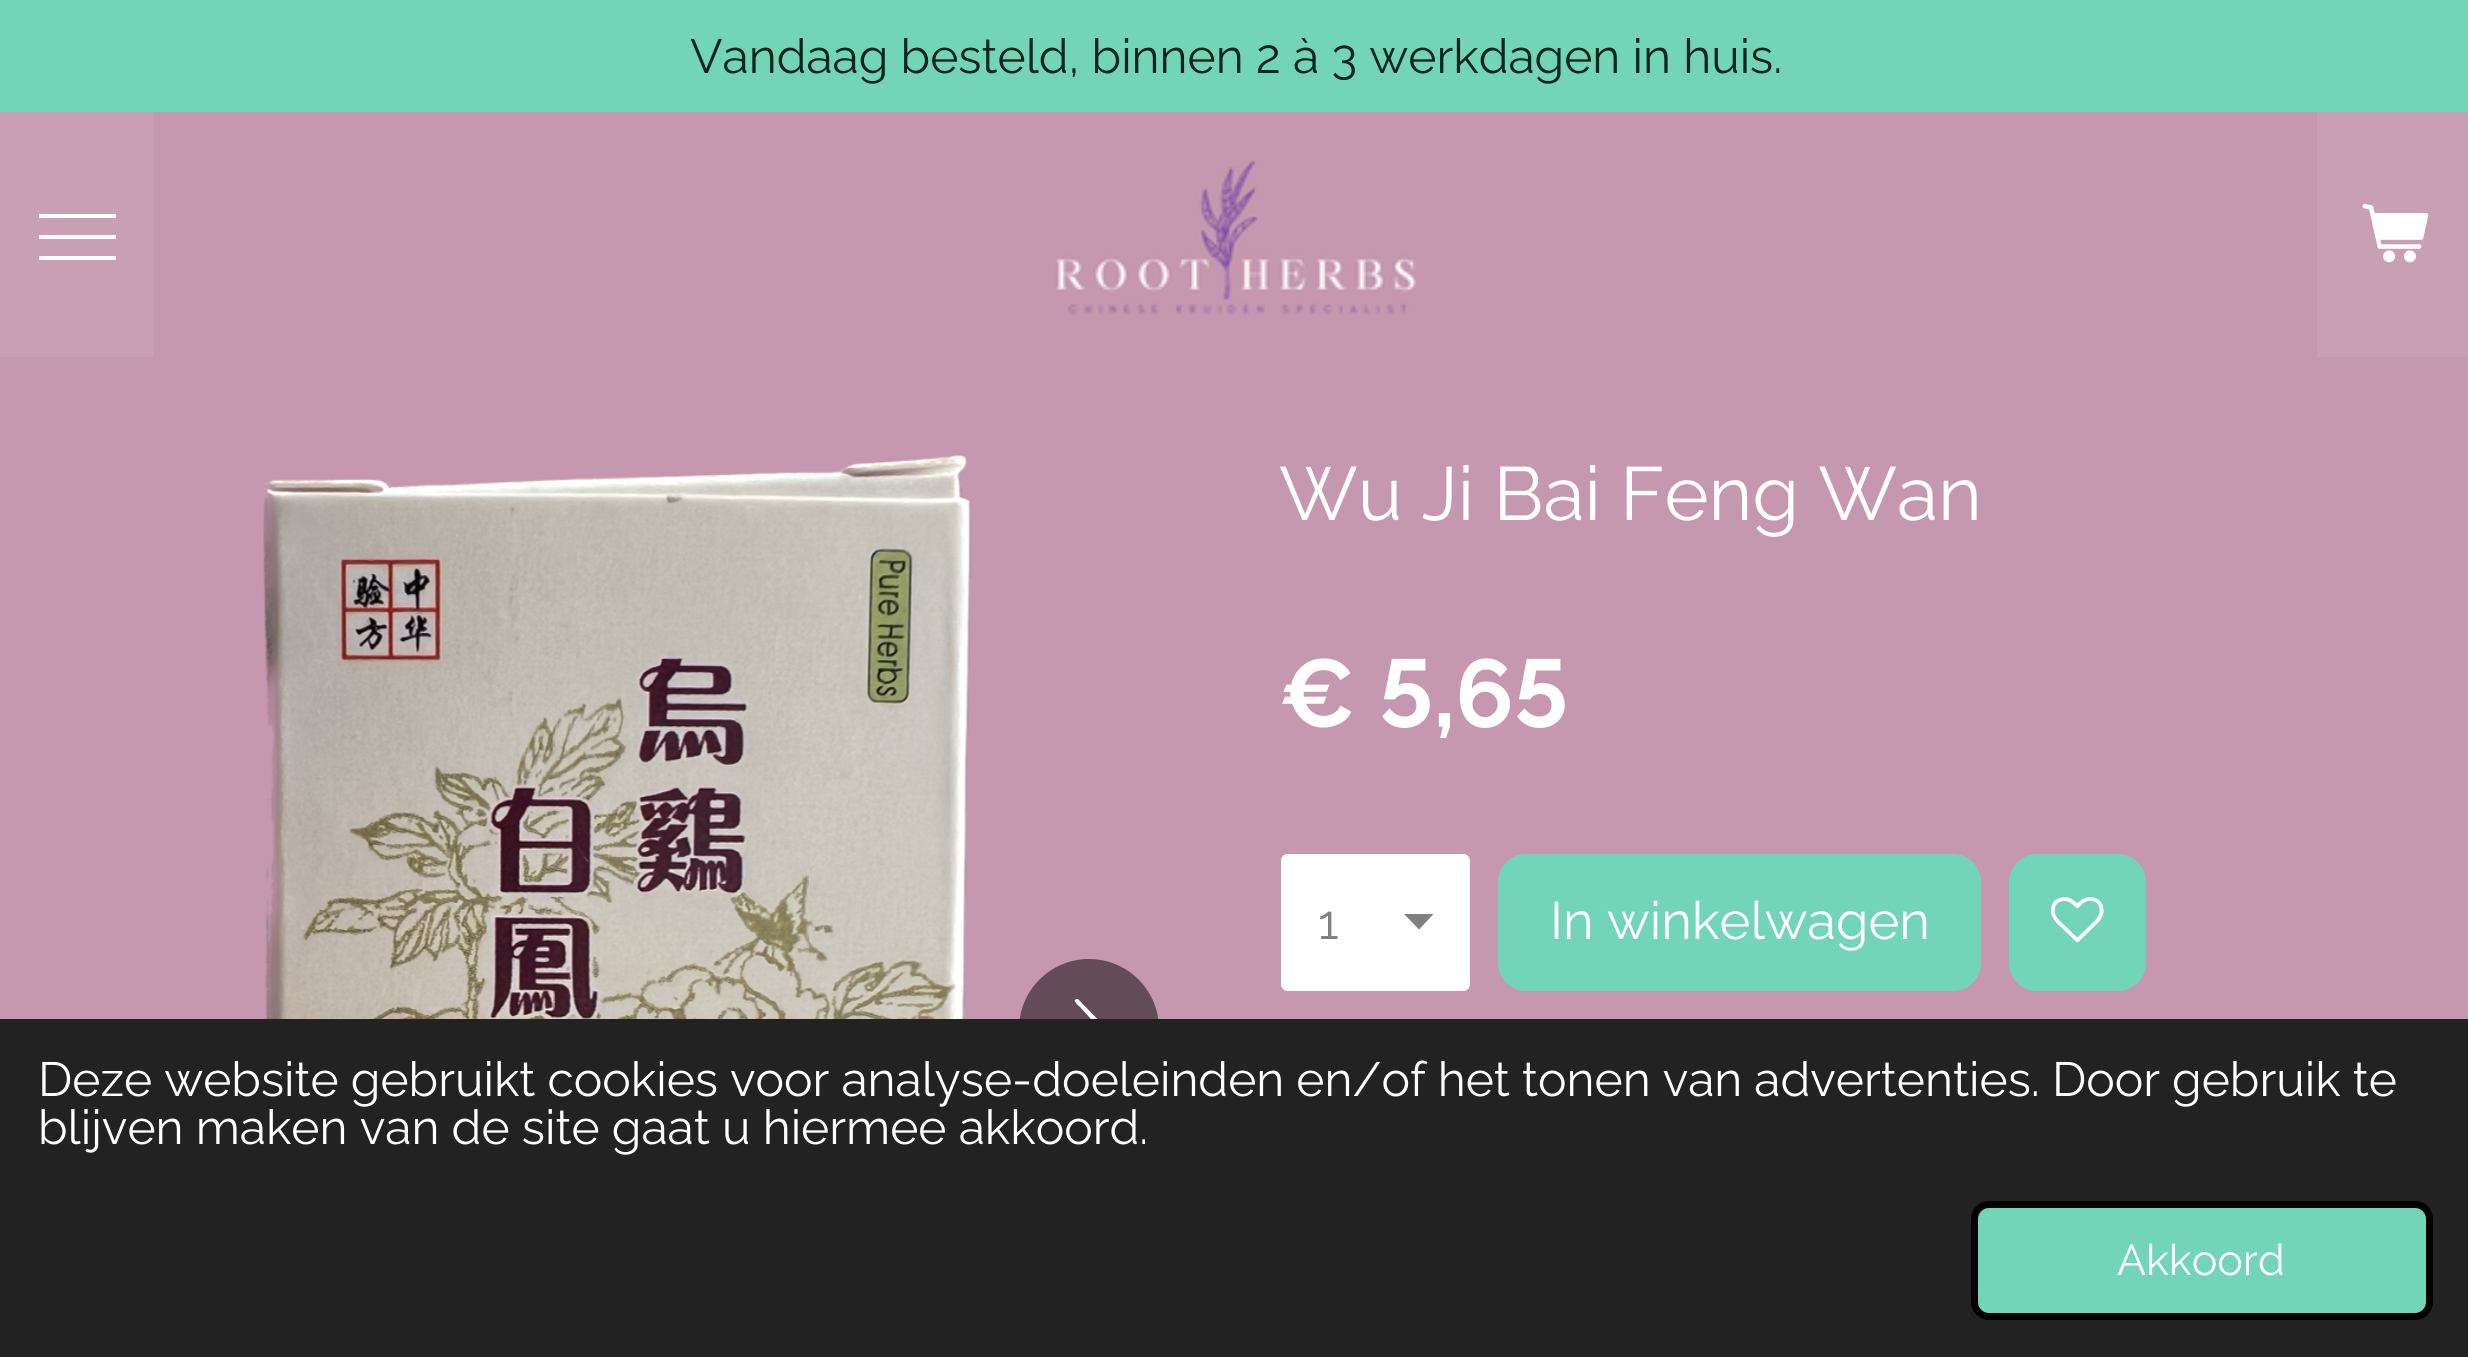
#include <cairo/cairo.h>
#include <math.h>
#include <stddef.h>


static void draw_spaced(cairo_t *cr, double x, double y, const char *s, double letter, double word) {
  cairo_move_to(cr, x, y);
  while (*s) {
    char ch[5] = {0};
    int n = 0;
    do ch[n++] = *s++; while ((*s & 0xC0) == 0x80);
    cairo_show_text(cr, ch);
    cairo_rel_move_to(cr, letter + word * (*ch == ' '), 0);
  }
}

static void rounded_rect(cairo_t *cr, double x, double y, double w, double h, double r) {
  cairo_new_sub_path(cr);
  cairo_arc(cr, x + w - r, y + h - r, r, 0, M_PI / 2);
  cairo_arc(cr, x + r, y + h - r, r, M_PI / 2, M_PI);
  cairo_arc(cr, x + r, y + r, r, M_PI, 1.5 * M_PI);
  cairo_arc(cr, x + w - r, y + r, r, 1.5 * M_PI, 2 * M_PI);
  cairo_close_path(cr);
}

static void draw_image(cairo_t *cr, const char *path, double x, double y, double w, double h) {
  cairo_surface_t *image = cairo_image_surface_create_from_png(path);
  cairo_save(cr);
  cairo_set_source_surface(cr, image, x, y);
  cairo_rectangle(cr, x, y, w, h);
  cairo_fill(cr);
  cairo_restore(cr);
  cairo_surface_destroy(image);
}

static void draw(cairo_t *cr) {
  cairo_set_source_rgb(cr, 197 / 255.0, 152 / 255.0, 175 / 255.0);
  cairo_paint(cr);
  cairo_set_source_rgb(cr, 115 / 255.0, 213 / 255.0, 184 / 255.0);
  cairo_rectangle(cr, 0, 0, 2468, 112);
  cairo_fill(cr);
  cairo_set_source_rgb(cr, 201 / 255.0, 159 / 255.0, 180 / 255.0);
  cairo_rectangle(cr, 0, 112, 154, 245);
  cairo_fill(cr);
  cairo_set_source_rgb(cr, 1, 1, 1);
  cairo_rectangle(cr, 39, 235, 77, 4);
  cairo_fill(cr);
  cairo_rectangle(cr, 39, 214, 77, 4);
  cairo_fill(cr);
  cairo_rectangle(cr, 39, 256, 77, 4);
  cairo_fill(cr);
  draw_image(cr, "images/1.png", 1055, 160, 361, 155);
  cairo_set_source_rgb(cr, 201 / 255.0, 159 / 255.0, 180 / 255.0);
  cairo_rectangle(cr, 2317, 112, 151, 245);
  cairo_fill(cr);
  draw_image(cr, "images/2.png", 2362, 204, 67, 59);
  draw_image(cr, "images/3.png", 263, 455, 709, 564);
  cairo_set_source_rgb(cr, 99 / 255.0, 76 / 255.0, 88 / 255.0);
  cairo_arc(cr, 1089, 1029, 70, 0, 2 * M_PI);
  cairo_fill(cr);
  cairo_set_source_rgb(cr, 1, 1, 1);
  cairo_new_path(cr);
  cairo_move_to(cr, 1075, 1055);
  cairo_line_to(cr, 1100, 1029);
  cairo_line_to(cr, 1080, 1007);
  cairo_curve_to(cr, 1079, 1006, 1071, 1000, 1077, 999);
  cairo_line_to(cr, 1078, 999);
  cairo_line_to(cr, 1107, 1029);
  cairo_line_to(cr, 1107, 1030);
  cairo_line_to(cr, 1083, 1054);
  cairo_curve_to(cr, 1083, 1054, 1076, 1063, 1075, 1057);
  cairo_close_path(cr);
  cairo_fill(cr);
  rounded_rect(cr, 1281, 854, 189, 137, 7);
  cairo_fill(cr);
  cairo_set_source_rgb(cr, 128 / 255.0, 128 / 255.0, 128 / 255.0);
  cairo_new_path(cr);
  cairo_move_to(cr, 1419, 929.5);
  cairo_line_to(cr, 1404, 914);
  cairo_line_to(cr, 1433.5, 914);
  cairo_close_path(cr);
  cairo_fill(cr);
  rounded_rect(cr, 1283, 856, 185, 133, 5);
  cairo_set_source_rgba(cr, 1, 1, 1, 0.5);
  cairo_set_line_width(cr, 4);
  cairo_stroke(cr);
  cairo_set_source_rgb(cr, 115 / 255.0, 213 / 255.0, 184 / 255.0);
  rounded_rect(cr, 1498, 854, 483, 137, 28);
  cairo_fill(cr);
  rounded_rect(cr, 2009, 854, 137, 137, 28);
  cairo_fill(cr);
  draw_image(cr, "images/4.png", 2051, 897, 53, 46);
  cairo_set_source_rgb(cr, 34 / 255.0, 34 / 255.0, 34 / 255.0);
  cairo_rectangle(cr, 0, 1019, 2468, 338);
  cairo_fill(cr);
  cairo_set_source_rgb(cr, 115 / 255.0, 213 / 255.0, 184 / 255.0);
  rounded_rect(cr, 1974.5, 1204.5, 455, 112, 14.5);
  cairo_fill_preserve(cr);
  cairo_set_source_rgb(cr, 0, 0, 0);
  cairo_set_line_width(cr, 7);
  cairo_stroke(cr);
  cairo_select_font_face(cr, "Raleway", CAIRO_FONT_SLANT_NORMAL, CAIRO_FONT_WEIGHT_NORMAL);
  cairo_set_font_size(cr, 47.95);
  cairo_set_source_rgb(cr, 11 / 255.0, 37 / 255.0, 29 / 255.0);
  cairo_move_to(cr, 690, 73);
  cairo_show_text(cr, "Vandaag besteld, binnen 2 à 3 werkdagen in huis.");
  cairo_set_font_size(cr, 75.25);
  cairo_set_source_rgb(cr, 1, 1, 1);
  cairo_move_to(cr, 1279, 520);
  cairo_show_text(cr, "Wu Ji Bai Feng Wan");
  cairo_select_font_face(cr, "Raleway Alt", CAIRO_FONT_SLANT_NORMAL, CAIRO_FONT_WEIGHT_BOLD);
  cairo_set_font_size(cr, 96);
  cairo_move_to(cr, 1279, 727);
  cairo_show_text(cr, "€ 5,65");
  cairo_select_font_face(cr, "Raleway", CAIRO_FONT_SLANT_NORMAL, CAIRO_FONT_WEIGHT_NORMAL);
  cairo_set_font_size(cr, 47.95);
  cairo_set_source_rgb(cr, 128 / 255.0, 128 / 255.0, 128 / 255.0);
  cairo_move_to(cr, 1318, 939);
  cairo_show_text(cr, "1");
  cairo_set_font_size(cr, 52.5);
  cairo_set_source_rgb(cr, 1, 1, 1);
  cairo_move_to(cr, 1550, 939);
  cairo_show_text(cr, "In winkelwagen");
  cairo_set_font_size(cr, 47.95);
  draw_spaced(cr, 38, 1096, "Deze website gebruikt cookies voor analyse-doeleinden en/of het tonen van advertenties. Door gebruik te", 0, -0.2);
  cairo_move_to(cr, 38, 1144);
  cairo_show_text(cr, "blijven maken van de site gaat u hiermee akkoord.");
  cairo_set_font_size(cr, 43);
  cairo_move_to(cr, 2117, 1275);
  cairo_show_text(cr, "Akkoord");
}

int main(void) {
  cairo_surface_t *surface = cairo_image_surface_create(CAIRO_FORMAT_RGB24, 2468, 1357);
  cairo_t *cr = cairo_create(surface);
  cairo_font_options_t *options = cairo_font_options_create();
  cairo_font_options_set_hint_metrics(options, CAIRO_HINT_METRICS_OFF);
  cairo_font_options_set_hint_style(options, CAIRO_HINT_STYLE_NONE);
  cairo_set_font_options(cr, options);
  cairo_set_miter_limit(cr, 4);
  draw(cr);
  cairo_surface_write_to_png(surface, "out.png");
  cairo_font_options_destroy(options);
  cairo_destroy(cr);
  cairo_surface_destroy(surface);
  return 0;
}
